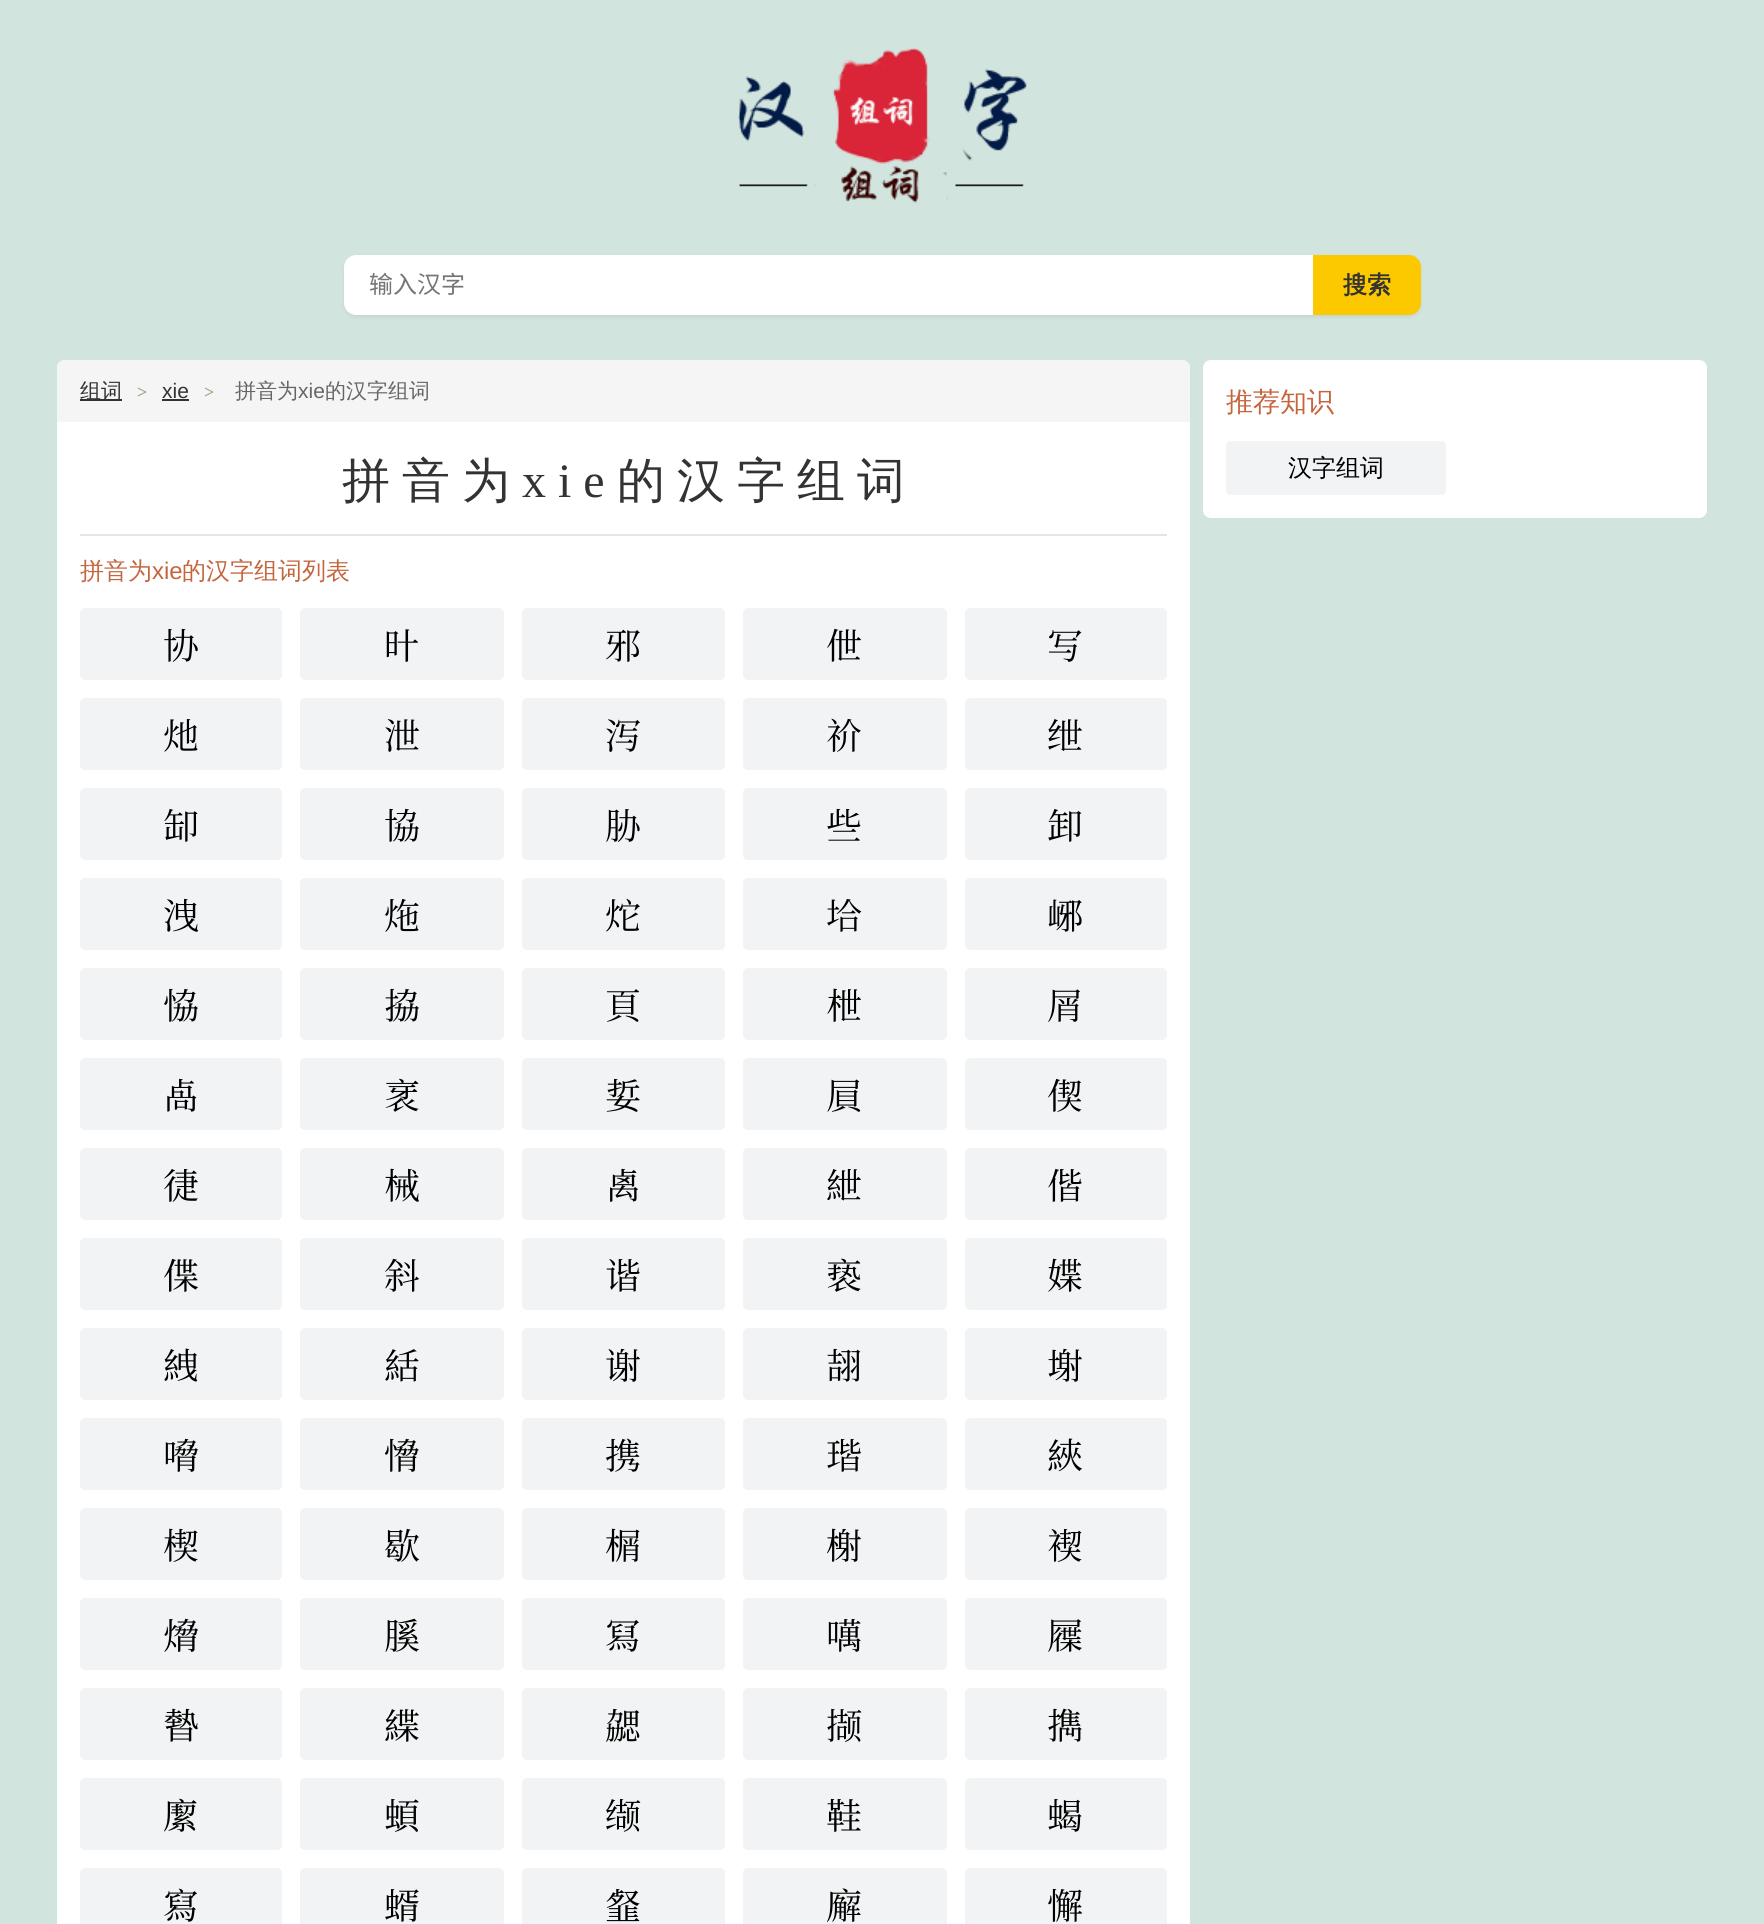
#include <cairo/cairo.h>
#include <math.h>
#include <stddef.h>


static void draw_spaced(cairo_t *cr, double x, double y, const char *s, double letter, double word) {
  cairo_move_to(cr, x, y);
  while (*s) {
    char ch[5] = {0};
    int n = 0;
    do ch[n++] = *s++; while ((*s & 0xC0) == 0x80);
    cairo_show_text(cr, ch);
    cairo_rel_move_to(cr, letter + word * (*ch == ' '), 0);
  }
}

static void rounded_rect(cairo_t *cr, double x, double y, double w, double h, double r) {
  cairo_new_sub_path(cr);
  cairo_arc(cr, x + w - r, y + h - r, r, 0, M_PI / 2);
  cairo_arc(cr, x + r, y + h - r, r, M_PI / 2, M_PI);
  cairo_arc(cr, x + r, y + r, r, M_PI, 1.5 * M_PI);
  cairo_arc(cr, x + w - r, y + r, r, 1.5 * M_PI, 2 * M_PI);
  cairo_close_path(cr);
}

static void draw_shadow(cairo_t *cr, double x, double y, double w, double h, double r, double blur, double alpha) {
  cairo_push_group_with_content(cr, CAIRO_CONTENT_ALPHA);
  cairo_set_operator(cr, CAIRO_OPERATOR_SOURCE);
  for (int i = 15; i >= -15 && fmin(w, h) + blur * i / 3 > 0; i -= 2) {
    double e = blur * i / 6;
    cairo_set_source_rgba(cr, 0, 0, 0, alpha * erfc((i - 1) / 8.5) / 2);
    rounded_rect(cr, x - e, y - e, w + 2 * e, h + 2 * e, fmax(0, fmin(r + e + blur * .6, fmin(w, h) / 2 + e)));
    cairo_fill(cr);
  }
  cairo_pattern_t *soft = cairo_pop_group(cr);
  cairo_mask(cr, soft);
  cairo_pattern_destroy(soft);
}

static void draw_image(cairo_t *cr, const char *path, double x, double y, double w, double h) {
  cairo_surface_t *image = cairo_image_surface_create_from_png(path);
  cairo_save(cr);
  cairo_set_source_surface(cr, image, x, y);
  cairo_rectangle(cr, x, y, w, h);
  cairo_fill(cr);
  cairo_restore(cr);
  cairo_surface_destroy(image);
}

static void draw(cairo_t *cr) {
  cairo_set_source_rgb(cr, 209 / 255.0, 228 / 255.0, 221 / 255.0);
  cairo_paint(cr);
  draw_image(cr, "images/1.png", 738, 48, 289, 155);
  cairo_set_source_rgb(cr, 65 / 255.0, 69 / 255.0, 73 / 255.0);
  draw_shadow(cr, 344, 257, 1077, 60, 12, 2, 0.1);
  cairo_set_source_rgb(cr, 1, 1, 1);
  cairo_new_path(cr);
  cairo_move_to(cr, 356, 255);
  cairo_line_to(cr, 1313, 255);
  cairo_line_to(cr, 1313, 315);
  cairo_line_to(cr, 356, 315);
  cairo_curve_to(cr, 349.5, 315, 344, 309.5, 344, 303);
  cairo_line_to(cr, 344, 267);
  cairo_curve_to(cr, 344, 260.5, 349.5, 255, 356, 255);
  cairo_close_path(cr);
  cairo_fill(cr);
  cairo_set_source_rgb(cr, 252 / 255.0, 200 / 255.0, 0);
  cairo_new_path(cr);
  cairo_move_to(cr, 1313, 255);
  cairo_line_to(cr, 1409, 255);
  cairo_curve_to(cr, 1415.5, 255, 1421, 260.5, 1421, 267);
  cairo_line_to(cr, 1421, 303);
  cairo_curve_to(cr, 1421, 309.5, 1415.5, 315, 1409, 315);
  cairo_line_to(cr, 1313, 315);
  cairo_close_path(cr);
  cairo_fill(cr);
  cairo_set_source_rgb(cr, 1, 1, 1);
  rounded_rect(cr, 57, 360, 1133, 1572, 8);
  cairo_fill(cr);
  cairo_set_source_rgb(cr, 245 / 255.0, 245 / 255.0, 245 / 255.0);
  cairo_new_path(cr);
  cairo_move_to(cr, 65, 360);
  cairo_line_to(cr, 1182, 360);
  cairo_curve_to(cr, 1186.5, 360, 1190, 363.5, 1190, 368);
  cairo_line_to(cr, 1190, 422);
  cairo_line_to(cr, 57, 422);
  cairo_line_to(cr, 57, 368);
  cairo_curve_to(cr, 57, 363.5, 60.5, 360, 65, 360);
  cairo_close_path(cr);
  cairo_fill(cr);
  cairo_set_source_rgb(cr, 51 / 255.0, 51 / 255.0, 51 / 255.0);
  cairo_rectangle(cr, 80, 399, 42, 2);
  cairo_fill(cr);
  cairo_rectangle(cr, 162, 399, 27, 2);
  cairo_fill(cr);
  cairo_set_source_rgb(cr, 229 / 255.0, 229 / 255.0, 229 / 255.0);
  cairo_rectangle(cr, 80, 534, 1087, 2);
  cairo_fill(cr);
  cairo_set_source_rgb(cr, 241 / 255.0, 243 / 255.0, 244 / 255.0);
  rounded_rect(cr, 80, 608, 202, 72, 5);
  cairo_fill(cr);
  rounded_rect(cr, 300, 608, 204, 72, 5);
  cairo_fill(cr);
  rounded_rect(cr, 522, 608, 203, 72, 5);
  cairo_fill(cr);
  rounded_rect(cr, 743, 608, 204, 72, 5);
  cairo_fill(cr);
  rounded_rect(cr, 965, 608, 202, 72, 5);
  cairo_fill(cr);
  rounded_rect(cr, 80, 698, 202, 72, 5);
  cairo_fill(cr);
  rounded_rect(cr, 300, 698, 204, 72, 5);
  cairo_fill(cr);
  rounded_rect(cr, 522, 698, 203, 72, 5);
  cairo_fill(cr);
  rounded_rect(cr, 743, 698, 204, 72, 5);
  cairo_fill(cr);
  rounded_rect(cr, 965, 698, 202, 72, 5);
  cairo_fill(cr);
  rounded_rect(cr, 80, 788, 202, 72, 5);
  cairo_fill(cr);
  rounded_rect(cr, 300, 788, 204, 72, 5);
  cairo_fill(cr);
  rounded_rect(cr, 522, 788, 203, 72, 5);
  cairo_fill(cr);
  rounded_rect(cr, 743, 788, 204, 72, 5);
  cairo_fill(cr);
  rounded_rect(cr, 965, 788, 202, 72, 5);
  cairo_fill(cr);
  rounded_rect(cr, 80, 878, 202, 72, 5);
  cairo_fill(cr);
  rounded_rect(cr, 300, 878, 204, 72, 5);
  cairo_fill(cr);
  rounded_rect(cr, 522, 878, 203, 72, 5);
  cairo_fill(cr);
  rounded_rect(cr, 743, 878, 204, 72, 5);
  cairo_fill(cr);
  rounded_rect(cr, 965, 878, 202, 72, 5);
  cairo_fill(cr);
  rounded_rect(cr, 80, 968, 202, 72, 5);
  cairo_fill(cr);
  rounded_rect(cr, 300, 968, 204, 72, 5);
  cairo_fill(cr);
  rounded_rect(cr, 522, 968, 203, 72, 5);
  cairo_fill(cr);
  rounded_rect(cr, 743, 968, 204, 72, 5);
  cairo_fill(cr);
  rounded_rect(cr, 965, 968, 202, 72, 5);
  cairo_fill(cr);
  rounded_rect(cr, 80, 1058, 202, 72, 5);
  cairo_fill(cr);
  rounded_rect(cr, 300, 1058, 204, 72, 5);
  cairo_fill(cr);
  rounded_rect(cr, 522, 1058, 203, 72, 5);
  cairo_fill(cr);
  rounded_rect(cr, 743, 1058, 204, 72, 5);
  cairo_fill(cr);
  rounded_rect(cr, 965, 1058, 202, 72, 5);
  cairo_fill(cr);
  rounded_rect(cr, 80, 1148, 202, 72, 5);
  cairo_fill(cr);
  rounded_rect(cr, 300, 1148, 204, 72, 5);
  cairo_fill(cr);
  rounded_rect(cr, 522, 1148, 203, 72, 5);
  cairo_fill(cr);
  rounded_rect(cr, 743, 1148, 204, 72, 5);
  cairo_fill(cr);
  rounded_rect(cr, 965, 1148, 202, 72, 5);
  cairo_fill(cr);
  rounded_rect(cr, 80, 1238, 202, 72, 5);
  cairo_fill(cr);
  rounded_rect(cr, 300, 1238, 204, 72, 5);
  cairo_fill(cr);
  rounded_rect(cr, 522, 1238, 203, 72, 5);
  cairo_fill(cr);
  rounded_rect(cr, 743, 1238, 204, 72, 5);
  cairo_fill(cr);
  rounded_rect(cr, 965, 1238, 202, 72, 5);
  cairo_fill(cr);
  rounded_rect(cr, 80, 1328, 202, 72, 5);
  cairo_fill(cr);
  rounded_rect(cr, 300, 1328, 204, 72, 5);
  cairo_fill(cr);
  rounded_rect(cr, 522, 1328, 203, 72, 5);
  cairo_fill(cr);
  rounded_rect(cr, 743, 1328, 204, 72, 5);
  cairo_fill(cr);
  rounded_rect(cr, 965, 1328, 202, 72, 5);
  cairo_fill(cr);
  rounded_rect(cr, 80, 1418, 202, 72, 5);
  cairo_fill(cr);
  rounded_rect(cr, 300, 1418, 204, 72, 5);
  cairo_fill(cr);
  rounded_rect(cr, 522, 1418, 203, 72, 5);
  cairo_fill(cr);
  rounded_rect(cr, 743, 1418, 204, 72, 5);
  cairo_fill(cr);
  rounded_rect(cr, 965, 1418, 202, 72, 5);
  cairo_fill(cr);
  rounded_rect(cr, 80, 1508, 202, 72, 5);
  cairo_fill(cr);
  rounded_rect(cr, 300, 1508, 204, 72, 5);
  cairo_fill(cr);
  rounded_rect(cr, 522, 1508, 203, 72, 5);
  cairo_fill(cr);
  rounded_rect(cr, 743, 1508, 204, 72, 5);
  cairo_fill(cr);
  rounded_rect(cr, 965, 1508, 202, 72, 5);
  cairo_fill(cr);
  rounded_rect(cr, 80, 1598, 202, 72, 5);
  cairo_fill(cr);
  rounded_rect(cr, 300, 1598, 204, 72, 5);
  cairo_fill(cr);
  rounded_rect(cr, 522, 1598, 203, 72, 5);
  cairo_fill(cr);
  rounded_rect(cr, 743, 1598, 204, 72, 5);
  cairo_fill(cr);
  rounded_rect(cr, 965, 1598, 202, 72, 5);
  cairo_fill(cr);
  rounded_rect(cr, 80, 1688, 202, 72, 5);
  cairo_fill(cr);
  rounded_rect(cr, 300, 1688, 204, 72, 5);
  cairo_fill(cr);
  rounded_rect(cr, 522, 1688, 203, 72, 5);
  cairo_fill(cr);
  rounded_rect(cr, 743, 1688, 204, 72, 5);
  cairo_fill(cr);
  rounded_rect(cr, 965, 1688, 202, 72, 5);
  cairo_fill(cr);
  rounded_rect(cr, 80, 1778, 202, 72, 5);
  cairo_fill(cr);
  rounded_rect(cr, 300, 1778, 204, 72, 5);
  cairo_fill(cr);
  rounded_rect(cr, 522, 1778, 203, 72, 5);
  cairo_fill(cr);
  rounded_rect(cr, 743, 1778, 204, 72, 5);
  cairo_fill(cr);
  rounded_rect(cr, 965, 1778, 202, 72, 5);
  cairo_fill(cr);
  rounded_rect(cr, 80, 1868, 202, 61, 5);
  cairo_fill(cr);
  rounded_rect(cr, 300, 1868, 204, 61, 5);
  cairo_fill(cr);
  rounded_rect(cr, 522, 1868, 203, 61, 5);
  cairo_fill(cr);
  rounded_rect(cr, 743, 1868, 204, 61, 5);
  cairo_fill(cr);
  rounded_rect(cr, 965, 1868, 202, 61, 5);
  cairo_fill(cr);
  cairo_set_source_rgb(cr, 1, 1, 1);
  rounded_rect(cr, 1203, 360, 504, 158, 8);
  cairo_fill(cr);
  cairo_set_source_rgb(cr, 241 / 255.0, 243 / 255.0, 244 / 255.0);
  rounded_rect(cr, 1226, 441, 220, 54, 5);
  cairo_fill(cr);
  cairo_select_font_face(cr, "Noto Sans CJK SC", CAIRO_FONT_SLANT_NORMAL, CAIRO_FONT_WEIGHT_NORMAL);
  cairo_set_font_size(cr, 24);
  cairo_set_source_rgb(cr, 117 / 255.0, 117 / 255.0, 117 / 255.0);
  cairo_move_to(cr, 369, 293);
  cairo_show_text(cr, "输入汉字");
  cairo_select_font_face(cr, "WenQuanYi Zen Hei", CAIRO_FONT_SLANT_NORMAL, CAIRO_FONT_WEIGHT_BOLD);
  cairo_set_source_rgb(cr, 51 / 255.0, 51 / 255.0, 51 / 255.0);
  cairo_move_to(cr, 1343, 293);
  cairo_show_text(cr, "搜索");
  cairo_select_font_face(cr, "WenQuanYi Zen Hei Medium", CAIRO_FONT_SLANT_NORMAL, CAIRO_FONT_WEIGHT_NORMAL);
  cairo_set_font_size(cr, 21);
  cairo_move_to(cr, 80, 398);
  cairo_show_text(cr, "组词");
  cairo_select_font_face(cr, "Liberation Serif", CAIRO_FONT_SLANT_NORMAL, CAIRO_FONT_WEIGHT_BOLD);
  cairo_set_font_size(cr, 18);
  cairo_set_source_rgb(cr, 164 / 255.0, 162 / 255.0, 136 / 255.0);
  cairo_move_to(cr, 137, 398);
  cairo_show_text(cr, ">");
  cairo_select_font_face(cr, "Liberation Sans", CAIRO_FONT_SLANT_NORMAL, CAIRO_FONT_WEIGHT_NORMAL);
  cairo_set_font_size(cr, 21);
  cairo_set_source_rgb(cr, 51 / 255.0, 51 / 255.0, 51 / 255.0);
  cairo_move_to(cr, 162, 398);
  cairo_show_text(cr, "xie");
  cairo_select_font_face(cr, "Liberation Serif", CAIRO_FONT_SLANT_NORMAL, CAIRO_FONT_WEIGHT_BOLD);
  cairo_set_font_size(cr, 18);
  cairo_set_source_rgb(cr, 164 / 255.0, 162 / 255.0, 136 / 255.0);
  cairo_move_to(cr, 204, 398);
  cairo_show_text(cr, ">");
  cairo_select_font_face(cr, "WenQuanYi Zen Hei Medium", CAIRO_FONT_SLANT_NORMAL, CAIRO_FONT_WEIGHT_NORMAL);
  cairo_set_font_size(cr, 21);
  cairo_set_source_rgb(cr, 102 / 255.0, 102 / 255.0, 102 / 255.0);
  cairo_move_to(cr, 235, 398);
  cairo_show_text(cr, "拼音为");
  cairo_select_font_face(cr, "Liberation Sans", CAIRO_FONT_SLANT_NORMAL, CAIRO_FONT_WEIGHT_NORMAL);
  cairo_move_to(cr, 298, 398);
  cairo_show_text(cr, "xie");
  cairo_select_font_face(cr, "WenQuanYi Zen Hei Medium", CAIRO_FONT_SLANT_NORMAL, CAIRO_FONT_WEIGHT_NORMAL);
  cairo_move_to(cr, 325, 398);
  cairo_show_text(cr, "的汉字组词");
  cairo_set_font_size(cr, 48);
  cairo_set_source_rgb(cr, 51 / 255.0, 51 / 255.0, 51 / 255.0);
  draw_spaced(cr, 342, 497, "拼音为", 12, 0);
  cairo_select_font_face(cr, "Liberation Serif", CAIRO_FONT_SLANT_NORMAL, CAIRO_FONT_WEIGHT_NORMAL);
  draw_spaced(cr, 522, 497, "xie", 12, 0);
  cairo_select_font_face(cr, "WenQuanYi Zen Hei Medium", CAIRO_FONT_SLANT_NORMAL, CAIRO_FONT_WEIGHT_NORMAL);
  draw_spaced(cr, 617, 497, "的汉字组词", 12, 0);
  cairo_set_font_size(cr, 24);
  cairo_set_source_rgb(cr, 197 / 255.0, 101 / 255.0, 62 / 255.0);
  cairo_move_to(cr, 80, 579);
  cairo_show_text(cr, "拼音为");
  cairo_select_font_face(cr, "Liberation Sans", CAIRO_FONT_SLANT_NORMAL, CAIRO_FONT_WEIGHT_NORMAL);
  cairo_move_to(cr, 152, 579);
  cairo_show_text(cr, "xie");
  cairo_select_font_face(cr, "WenQuanYi Zen Hei Medium", CAIRO_FONT_SLANT_NORMAL, CAIRO_FONT_WEIGHT_NORMAL);
  cairo_move_to(cr, 182, 579);
  cairo_show_text(cr, "的汉字组词列表");
  cairo_select_font_face(cr, "Noto Serif CJK SC", CAIRO_FONT_SLANT_NORMAL, CAIRO_FONT_WEIGHT_NORMAL);
  cairo_set_font_size(cr, 36);
  cairo_set_source_rgb(cr, 0, 0, 0);
  cairo_move_to(cr, 163, 659);
  cairo_show_text(cr, "协");
  cairo_move_to(cr, 384, 659);
  cairo_show_text(cr, "旪");
  cairo_move_to(cr, 605, 659);
  cairo_show_text(cr, "邪");
  cairo_move_to(cr, 826, 659);
  cairo_show_text(cr, "伳");
  cairo_move_to(cr, 1047, 659);
  cairo_show_text(cr, "写");
  cairo_move_to(cr, 163, 749);
  cairo_show_text(cr, "灺");
  cairo_move_to(cr, 384, 749);
  cairo_show_text(cr, "泄");
  cairo_move_to(cr, 605, 749);
  cairo_show_text(cr, "泻");
  cairo_move_to(cr, 826, 749);
  cairo_show_text(cr, "祄");
  cairo_move_to(cr, 1047, 749);
  cairo_show_text(cr, "绁");
  cairo_move_to(cr, 163, 839);
  cairo_show_text(cr, "缷");
  cairo_move_to(cr, 384, 839);
  cairo_show_text(cr, "協");
  cairo_move_to(cr, 605, 839);
  cairo_show_text(cr, "胁");
  cairo_move_to(cr, 826, 839);
  cairo_show_text(cr, "些");
  cairo_move_to(cr, 1047, 839);
  cairo_show_text(cr, "卸");
  cairo_move_to(cr, 163, 929);
  cairo_show_text(cr, "洩");
  cairo_move_to(cr, 384, 929);
  cairo_show_text(cr, "炧");
  cairo_move_to(cr, 605, 929);
  cairo_show_text(cr, "炨");
  cairo_move_to(cr, 826, 929);
  cairo_show_text(cr, "垥");
  cairo_move_to(cr, 1047, 929);
  cairo_show_text(cr, "峫");
  cairo_move_to(cr, 163, 1019);
  cairo_show_text(cr, "恊");
  cairo_move_to(cr, 384, 1019);
  cairo_show_text(cr, "拹");
  cairo_move_to(cr, 605, 1019);
  cairo_show_text(cr, "頁");
  cairo_move_to(cr, 826, 1019);
  cairo_show_text(cr, "枻");
  cairo_move_to(cr, 1047, 1019);
  cairo_show_text(cr, "屑");
  cairo_move_to(cr, 163, 1109);
  cairo_show_text(cr, "卨");
  cairo_move_to(cr, 384, 1109);
  cairo_show_text(cr, "衺");
  cairo_move_to(cr, 605, 1109);
  cairo_show_text(cr, "娎");
  cairo_move_to(cr, 826, 1109);
  cairo_show_text(cr, "屓");
  cairo_move_to(cr, 1047, 1109);
  cairo_show_text(cr, "偰");
  cairo_move_to(cr, 163, 1199);
  cairo_show_text(cr, "徢");
  cairo_move_to(cr, 384, 1199);
  cairo_show_text(cr, "械");
  cairo_move_to(cr, 605, 1199);
  cairo_show_text(cr, "禼");
  cairo_move_to(cr, 826, 1199);
  cairo_show_text(cr, "紲");
  cairo_move_to(cr, 1047, 1199);
  cairo_show_text(cr, "偕");
  cairo_move_to(cr, 163, 1289);
  cairo_show_text(cr, "偞");
  cairo_move_to(cr, 384, 1289);
  cairo_show_text(cr, "斜");
  cairo_move_to(cr, 605, 1289);
  cairo_show_text(cr, "谐");
  cairo_move_to(cr, 826, 1289);
  cairo_show_text(cr, "亵");
  cairo_move_to(cr, 1047, 1289);
  cairo_show_text(cr, "媟");
  cairo_move_to(cr, 163, 1379);
  cairo_show_text(cr, "絏");
  cairo_move_to(cr, 384, 1379);
  cairo_show_text(cr, "絬");
  cairo_move_to(cr, 605, 1379);
  cairo_show_text(cr, "谢");
  cairo_move_to(cr, 826, 1379);
  cairo_show_text(cr, "翓");
  cairo_move_to(cr, 1047, 1379);
  cairo_show_text(cr, "塮");
  cairo_move_to(cr, 163, 1469);
  cairo_show_text(cr, "嗋");
  cairo_move_to(cr, 384, 1469);
  cairo_show_text(cr, "愶");
  cairo_move_to(cr, 605, 1469);
  cairo_show_text(cr, "携");
  cairo_move_to(cr, 826, 1469);
  cairo_show_text(cr, "瑎");
  cairo_move_to(cr, 1047, 1469);
  cairo_show_text(cr, "綊");
  cairo_move_to(cr, 163, 1559);
  cairo_show_text(cr, "楔");
  cairo_move_to(cr, 384, 1559);
  cairo_show_text(cr, "歇");
  cairo_move_to(cr, 605, 1559);
  cairo_show_text(cr, "榍");
  cairo_move_to(cr, 826, 1559);
  cairo_show_text(cr, "榭");
  cairo_move_to(cr, 1047, 1559);
  cairo_show_text(cr, "褉");
  cairo_move_to(cr, 163, 1649);
  cairo_show_text(cr, "熁");
  cairo_move_to(cr, 384, 1649);
  cairo_show_text(cr, "膎");
  cairo_move_to(cr, 605, 1649);
  cairo_show_text(cr, "冩");
  cairo_move_to(cr, 826, 1649);
  cairo_show_text(cr, "噧");
  cairo_move_to(cr, 1047, 1649);
  cairo_show_text(cr, "屧");
  cairo_move_to(cr, 163, 1739);
  cairo_show_text(cr, "暬");
  cairo_move_to(cr, 384, 1739);
  cairo_show_text(cr, "緤");
  cairo_move_to(cr, 605, 1739);
  cairo_show_text(cr, "勰");
  cairo_move_to(cr, 826, 1739);
  cairo_show_text(cr, "撷");
  cairo_move_to(cr, 1047, 1739);
  cairo_show_text(cr, "擕");
  cairo_move_to(cr, 163, 1829);
  cairo_show_text(cr, "緳");
  cairo_move_to(cr, 384, 1829);
  cairo_show_text(cr, "蝢");
  cairo_move_to(cr, 605, 1829);
  cairo_show_text(cr, "缬");
  cairo_move_to(cr, 826, 1829);
  cairo_show_text(cr, "鞋");
  cairo_move_to(cr, 1047, 1829);
  cairo_show_text(cr, "蝎");
  cairo_move_to(cr, 163, 1919);
  cairo_show_text(cr, "寫");
  cairo_move_to(cr, 384, 1919);
  cairo_show_text(cr, "蝑");
  cairo_move_to(cr, 605, 1919);
  cairo_show_text(cr, "韰");
  cairo_move_to(cr, 826, 1919);
  cairo_show_text(cr, "廨");
  cairo_move_to(cr, 1047, 1919);
  cairo_show_text(cr, "懈");
  cairo_select_font_face(cr, "WenQuanYi Zen Hei Medium", CAIRO_FONT_SLANT_NORMAL, CAIRO_FONT_WEIGHT_NORMAL);
  cairo_set_font_size(cr, 27);
  cairo_set_source_rgb(cr, 197 / 255.0, 101 / 255.0, 62 / 255.0);
  cairo_move_to(cr, 1226, 411);
  cairo_show_text(cr, "推荐知识");
  cairo_set_font_size(cr, 24);
  cairo_set_source_rgb(cr, 0, 0, 0);
  cairo_move_to(cr, 1288, 476);
  cairo_show_text(cr, "汉字组词");
}

int main(void) {
  cairo_surface_t *surface = cairo_image_surface_create(CAIRO_FORMAT_RGB24, 1764, 1924);
  cairo_t *cr = cairo_create(surface);
  cairo_font_options_t *options = cairo_font_options_create();
  cairo_font_options_set_hint_metrics(options, CAIRO_HINT_METRICS_OFF);
  cairo_font_options_set_hint_style(options, CAIRO_HINT_STYLE_NONE);
  cairo_set_font_options(cr, options);
  cairo_set_miter_limit(cr, 4);
  draw(cr);
  cairo_surface_write_to_png(surface, "out.png");
  cairo_font_options_destroy(options);
  cairo_destroy(cr);
  cairo_surface_destroy(surface);
  return 0;
}
